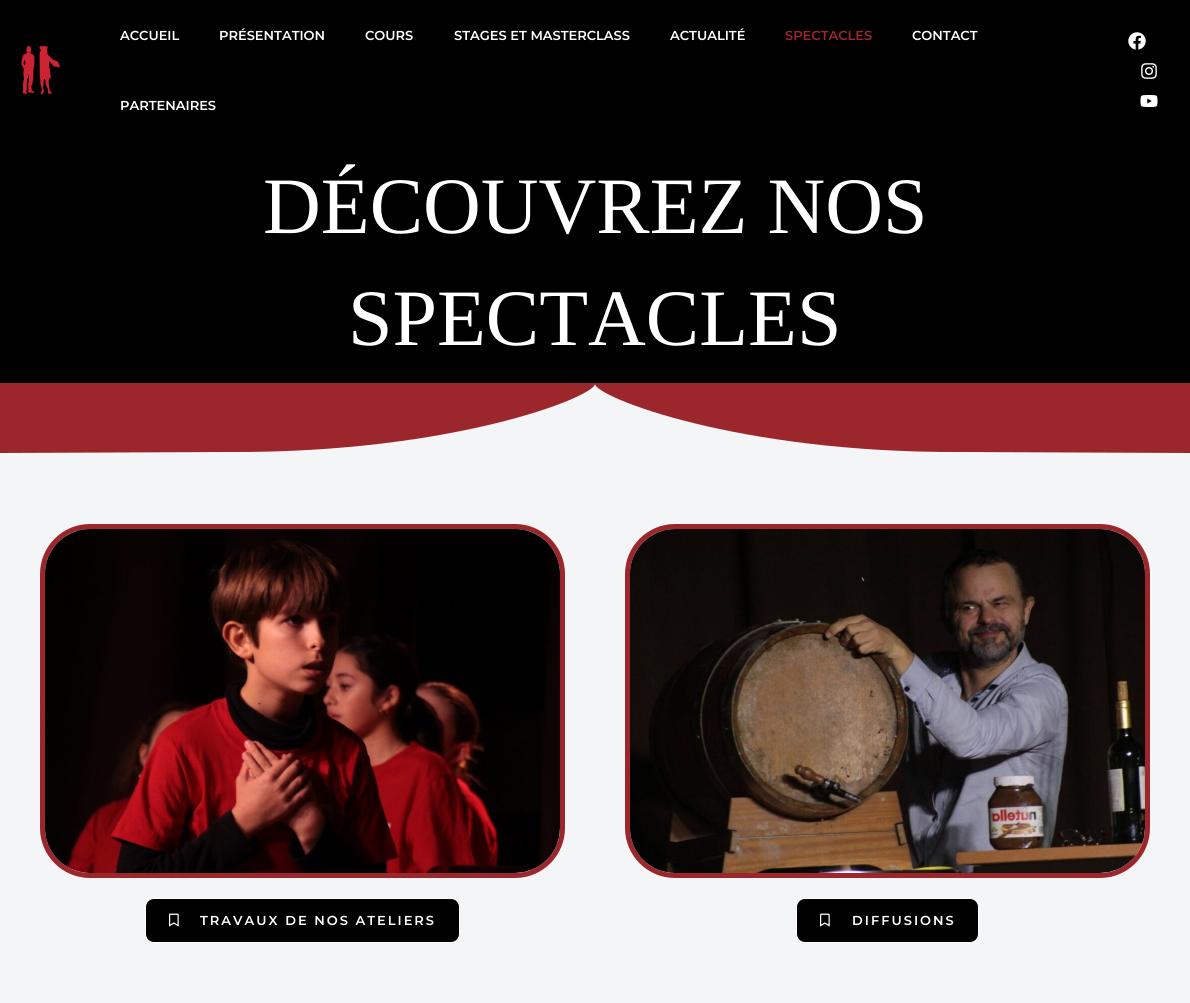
#include <cairo/cairo.h>
#include <math.h>
#include <stddef.h>


static void draw_spaced(cairo_t *cr, double x, double y, const char *s, double letter, double word) {
  cairo_move_to(cr, x, y);
  while (*s) {
    char ch[5] = {0};
    int n = 0;
    do ch[n++] = *s++; while ((*s & 0xC0) == 0x80);
    cairo_show_text(cr, ch);
    cairo_rel_move_to(cr, letter + word * (*ch == ' '), 0);
  }
}

static void rounded_rect(cairo_t *cr, double x, double y, double w, double h, double r) {
  cairo_new_sub_path(cr);
  cairo_arc(cr, x + w - r, y + h - r, r, 0, M_PI / 2);
  cairo_arc(cr, x + r, y + h - r, r, M_PI / 2, M_PI);
  cairo_arc(cr, x + r, y + r, r, M_PI, 1.5 * M_PI);
  cairo_arc(cr, x + w - r, y + r, r, 1.5 * M_PI, 2 * M_PI);
  cairo_close_path(cr);
}

static void draw_image(cairo_t *cr, const char *path, double x, double y, double w, double h) {
  cairo_surface_t *image = cairo_image_surface_create_from_png(path);
  cairo_save(cr);
  cairo_set_source_surface(cr, image, x, y);
  cairo_rectangle(cr, x, y, w, h);
  cairo_fill(cr);
  cairo_restore(cr);
  cairo_surface_destroy(image);
}

static void draw(cairo_t *cr) {
  cairo_set_source_rgb(cr, 0, 0, 0);
  cairo_paint(cr);
  draw_image(cr, "images/1.png", 21, 46, 39, 49);
  draw_image(cr, "images/2.png", 1128, 32, 18, 18);
  draw_image(cr, "images/3.png", 1141, 63, 16, 16);
  draw_image(cr, "images/4.png", 1140, 95, 18, 12);
  cairo_set_source_rgb(cr, 244 / 255.0, 245 / 255.0, 246 / 255.0);
  cairo_rectangle(cr, 0, 384, 1190, 619);
  cairo_fill(cr);
  cairo_set_source_rgb(cr, 155 / 255.0, 38 / 255.0, 44 / 255.0);
  cairo_new_path(cr);
  cairo_move_to(cr, 230, 452);
  cairo_curve_to(cr, 453, 453, 594, 397, 595, 384);
  cairo_curve_to(cr, 596, 397, 737, 453, 960, 452);
  cairo_line_to(cr, 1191, 453);
  cairo_line_to(cr, 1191, 383);
  cairo_line_to(cr, -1, 383);
  cairo_line_to(cr, -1, 453);
  cairo_close_path(cr);
  cairo_fill(cr);
  rounded_rect(cr, 42.5, 526.5, 520, 349, 47.5);
  cairo_set_line_width(cr, 5);
  cairo_stroke(cr);
  draw_image(cr, "images/5.png", 45, 529, 515, 344);
  cairo_set_source_rgb(cr, 0, 0, 0);
  rounded_rect(cr, 145.5, 898.5, 314, 44, 8.5);
  cairo_fill_preserve(cr);
  cairo_set_source_rgb(cr, 1, 1, 1);
  cairo_set_line_width(cr, 1);
  cairo_stroke(cr);
  draw_image(cr, "images/6.png", 169, 913, 10, 14);
  rounded_rect(cr, 627.5, 526.5, 520, 349, 47.5);
  cairo_set_source_rgb(cr, 155 / 255.0, 38 / 255.0, 44 / 255.0);
  cairo_set_line_width(cr, 5);
  cairo_stroke(cr);
  draw_image(cr, "images/7.png", 630, 529, 515, 344);
  cairo_set_source_rgb(cr, 0, 0, 0);
  rounded_rect(cr, 796.5, 898.5, 182, 44, 8.5);
  cairo_fill_preserve(cr);
  cairo_set_source_rgb(cr, 1, 1, 1);
  cairo_set_line_width(cr, 1);
  cairo_stroke(cr);
  draw_image(cr, "images/6.png", 820, 913, 10, 14);
  cairo_select_font_face(cr, "Montserrat Thin", CAIRO_FONT_SLANT_NORMAL, CAIRO_FONT_WEIGHT_NORMAL);
  cairo_set_font_size(cr, 13);
  cairo_move_to(cr, 120, 40);
  cairo_show_text(cr, "ACCUEIL");
  cairo_move_to(cr, 219, 40);
  cairo_show_text(cr, "PRÉSENTATION");
  cairo_move_to(cr, 365, 40);
  cairo_show_text(cr, "COURS");
  cairo_move_to(cr, 454, 40);
  cairo_show_text(cr, "STAGES ET MASTERCLASS");
  cairo_move_to(cr, 670, 40);
  cairo_show_text(cr, "ACTUALITÉ");
  cairo_set_source_rgb(cr, 156 / 255.0, 39 / 255.0, 45 / 255.0);
  cairo_move_to(cr, 785, 40);
  cairo_show_text(cr, "SPECTACLES");
  cairo_set_source_rgb(cr, 1, 1, 1);
  cairo_move_to(cr, 912, 40);
  cairo_show_text(cr, "CONTACT");
  cairo_move_to(cr, 120, 110);
  cairo_show_text(cr, "PARTENAIRES");
  cairo_select_font_face(cr, "Liberation Serif", CAIRO_FONT_SLANT_NORMAL, CAIRO_FONT_WEIGHT_NORMAL);
  cairo_set_font_size(cr, 80);
  cairo_move_to(cr, 263, 233);
  cairo_show_text(cr, "DÉCOUVREZ NOS");
  cairo_move_to(cr, 348, 345);
  cairo_show_text(cr, "SPECTACLES");
  cairo_select_font_face(cr, "Montserrat Thin", CAIRO_FONT_SLANT_NORMAL, CAIRO_FONT_WEIGHT_NORMAL);
  cairo_set_font_size(cr, 13);
  draw_spaced(cr, 200, 925, "TRAVAUX DE NOS ATELIERS", 2, 0);
  draw_spaced(cr, 852, 925, "DIFFUSIONS", 2, 0);
}

int main(void) {
  cairo_surface_t *surface = cairo_image_surface_create(CAIRO_FORMAT_RGB24, 1190, 1003);
  cairo_t *cr = cairo_create(surface);
  cairo_font_options_t *options = cairo_font_options_create();
  cairo_font_options_set_hint_metrics(options, CAIRO_HINT_METRICS_OFF);
  cairo_font_options_set_hint_style(options, CAIRO_HINT_STYLE_NONE);
  cairo_set_font_options(cr, options);
  cairo_set_miter_limit(cr, 4);
  draw(cr);
  cairo_surface_write_to_png(surface, "out.png");
  cairo_font_options_destroy(options);
  cairo_destroy(cr);
  cairo_surface_destroy(surface);
  return 0;
}
